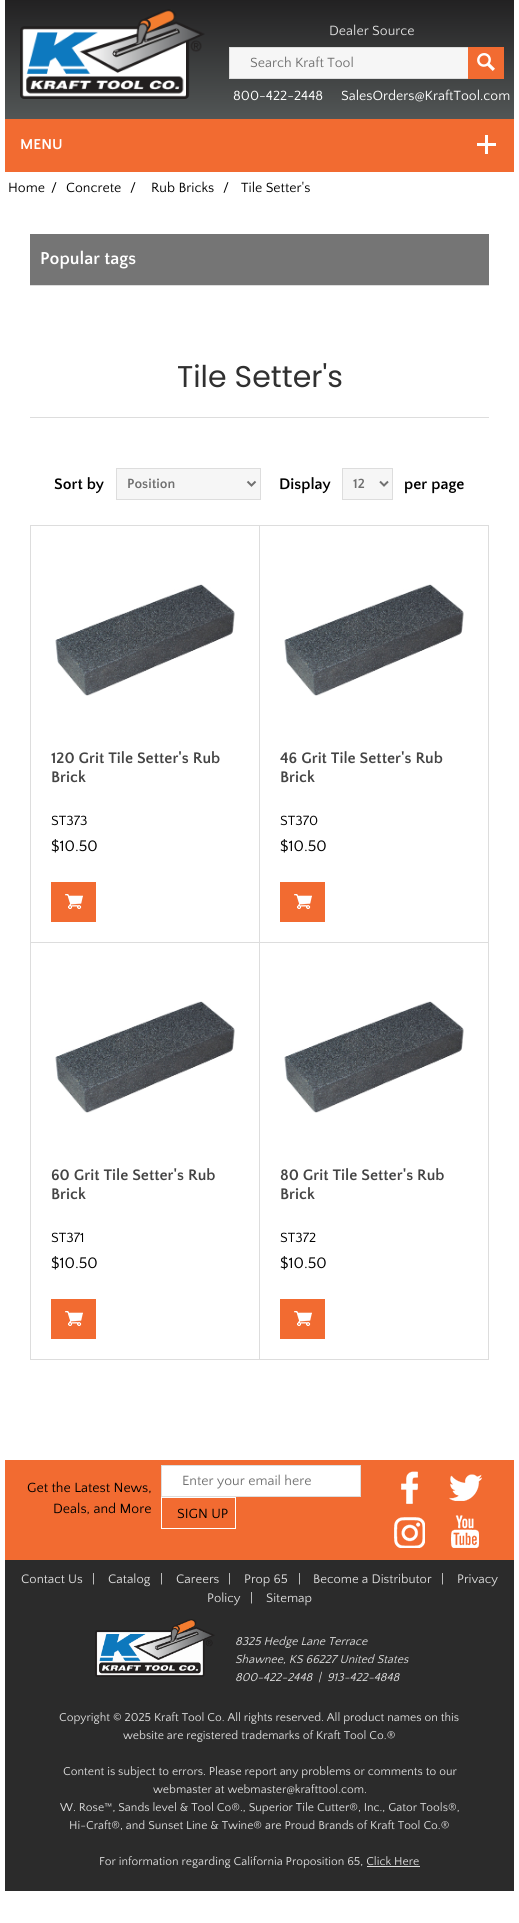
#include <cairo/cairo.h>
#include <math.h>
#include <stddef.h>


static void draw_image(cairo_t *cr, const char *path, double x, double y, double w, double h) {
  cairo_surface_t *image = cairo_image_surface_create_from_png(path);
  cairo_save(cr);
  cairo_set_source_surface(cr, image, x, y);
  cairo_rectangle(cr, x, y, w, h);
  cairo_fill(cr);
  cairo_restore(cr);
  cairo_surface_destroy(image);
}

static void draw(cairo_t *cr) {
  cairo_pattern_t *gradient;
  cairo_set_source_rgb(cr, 1, 1, 1);
  cairo_paint(cr);
  gradient = cairo_pattern_create_linear(260, 0, 260, 119);
  cairo_pattern_add_color_stop_rgba(gradient, 0, 34 / 255.0, 33 / 255.0, 34 / 255.0, 1);
  cairo_pattern_add_color_stop_rgba(gradient, 1, 82 / 255.0, 86 / 255.0, 86 / 255.0, 1);
  cairo_set_source(cr, gradient);
  cairo_pattern_destroy(gradient);
  cairo_rectangle(cr, 5, 0, 509, 119);
  cairo_fill(cr);
  draw_image(cr, "images/1.png", 20, 9, 185, 90);
  cairo_set_source_rgb(cr, 246 / 255.0, 246 / 255.0, 246 / 255.0);
  cairo_rectangle(cr, 229.5, 47.5, 239, 31);
  cairo_fill_preserve(cr);
  cairo_set_source_rgb(cr, 221 / 255.0, 221 / 255.0, 221 / 255.0);
  cairo_set_line_width(cr, 1);
  cairo_stroke(cr);
  cairo_set_source_rgb(cr, 242 / 255.0, 107 / 255.0, 49 / 255.0);
  cairo_rectangle(cr, 468, 47, 36, 32);
  cairo_fill(cr);
  draw_image(cr, "images/2.png", 477, 53, 18, 18);
  cairo_rectangle(cr, 5, 119, 509, 53);
  cairo_fill(cr);
  draw_image(cr, "images/3.png", 477, 135, 19, 19);
  cairo_set_source_rgb(cr, 117 / 255.0, 117 / 255.0, 117 / 255.0);
  cairo_rectangle(cr, 30, 234, 459, 51);
  cairo_fill(cr);
  cairo_set_source_rgb(cr, 221 / 255.0, 221 / 255.0, 221 / 255.0);
  cairo_rectangle(cr, 30, 285, 459, 1);
  cairo_fill(cr);
  cairo_rectangle(cr, 30, 417, 459, 1);
  cairo_fill(cr);
  cairo_set_source_rgb(cr, 246 / 255.0, 246 / 255.0, 246 / 255.0);
  cairo_rectangle(cr, 116.5, 468.5, 144, 31);
  cairo_fill_preserve(cr);
  cairo_set_source_rgb(cr, 221 / 255.0, 221 / 255.0, 221 / 255.0);
  cairo_stroke(cr);
  cairo_new_path(cr);
  cairo_move_to(cr, 247.5, 481.5);
  cairo_line_to(cr, 251.5, 485.5);
  cairo_line_to(cr, 255.5, 481.5);
  cairo_set_source_rgb(cr, 112 / 255.0, 112 / 255.0, 112 / 255.0);
  cairo_set_line_width(cr, 2);
  cairo_stroke(cr);
  cairo_set_source_rgb(cr, 246 / 255.0, 246 / 255.0, 246 / 255.0);
  cairo_rectangle(cr, 342.5, 468.5, 50, 31);
  cairo_fill_preserve(cr);
  cairo_set_source_rgb(cr, 221 / 255.0, 221 / 255.0, 221 / 255.0);
  cairo_set_line_width(cr, 1);
  cairo_stroke(cr);
  cairo_new_path(cr);
  cairo_move_to(cr, 380, 481.5);
  cairo_line_to(cr, 384, 485.5);
  cairo_line_to(cr, 388, 481.5);
  cairo_set_source_rgb(cr, 112 / 255.0, 112 / 255.0, 112 / 255.0);
  cairo_set_line_width(cr, 2);
  cairo_stroke(cr);
  cairo_set_source_rgb(cr, 221 / 255.0, 221 / 255.0, 221 / 255.0);
  cairo_rectangle(cr, 30, 525, 459, 1);
  cairo_fill(cr);
  cairo_rectangle(cr, 30, 525, 1, 835);
  cairo_fill(cr);
  cairo_rectangle(cr, 259, 526, 1, 834);
  cairo_fill(cr);
  cairo_rectangle(cr, 31, 942, 229, 1);
  cairo_fill(cr);
  draw_image(cr, "images/4.png", 55, 584, 180, 112);
  cairo_set_source_rgb(cr, 242 / 255.0, 107 / 255.0, 49 / 255.0);
  cairo_rectangle(cr, 51, 882, 45, 40);
  cairo_fill(cr);
  draw_image(cr, "images/5.png", 65, 894, 18, 15);
  cairo_set_source_rgb(cr, 221 / 255.0, 221 / 255.0, 221 / 255.0);
  cairo_rectangle(cr, 488, 526, 1, 834);
  cairo_fill(cr);
  cairo_rectangle(cr, 260, 942, 229, 1);
  cairo_fill(cr);
  draw_image(cr, "images/4.png", 284, 584, 180, 112);
  cairo_set_source_rgb(cr, 242 / 255.0, 107 / 255.0, 49 / 255.0);
  cairo_rectangle(cr, 280, 882, 45, 40);
  cairo_fill(cr);
  draw_image(cr, "images/5.png", 294, 894, 18, 15);
  cairo_set_source_rgb(cr, 221 / 255.0, 221 / 255.0, 221 / 255.0);
  cairo_rectangle(cr, 31, 1359, 458, 1);
  cairo_fill(cr);
  draw_image(cr, "images/4.png", 55, 1001, 180, 112);
  cairo_set_source_rgb(cr, 242 / 255.0, 107 / 255.0, 49 / 255.0);
  cairo_rectangle(cr, 51, 1299, 45, 40);
  cairo_fill(cr);
  draw_image(cr, "images/5.png", 65, 1311, 18, 15);
  draw_image(cr, "images/4.png", 284, 1001, 180, 112);
  cairo_rectangle(cr, 280, 1299, 45, 40);
  cairo_fill(cr);
  draw_image(cr, "images/5.png", 294, 1311, 18, 15);
  cairo_rectangle(cr, 5, 1460, 509, 100);
  cairo_fill(cr);
  cairo_set_source_rgb(cr, 1, 1, 1);
  cairo_rectangle(cr, 161.5, 1465.5, 199, 31);
  cairo_fill_preserve(cr);
  cairo_set_source_rgb(cr, 221 / 255.0, 221 / 255.0, 221 / 255.0);
  cairo_set_line_width(cr, 1);
  cairo_stroke(cr);
  cairo_rectangle(cr, 161.5, 1497.5, 74, 31);
  cairo_set_source_rgb(cr, 1, 1, 1);
  cairo_stroke(cr);
  draw_image(cr, "images/6.png", 401, 1471, 17, 33);
  draw_image(cr, "images/7.png", 449, 1474, 33, 27);
  draw_image(cr, "images/8.png", 394, 1517, 31, 31);
  draw_image(cr, "images/9.png", 451, 1515, 28, 33);
  cairo_set_source_rgb(cr, 43 / 255.0, 43 / 255.0, 43 / 255.0);
  cairo_rectangle(cr, 5, 1560, 509, 331);
  cairo_fill(cr);
  draw_image(cr, "images/10.png", 95, 1619, 120, 58);
  cairo_set_source_rgb(cr, 221 / 255.0, 221 / 255.0, 221 / 255.0);
  cairo_rectangle(cr, 367, 1866, 53, 1);
  cairo_fill(cr);
  cairo_select_font_face(cr, "Quattrocento Sans", CAIRO_FONT_SLANT_NORMAL, CAIRO_FONT_WEIGHT_NORMAL);
  cairo_set_font_size(cr, 14);
  cairo_move_to(cr, 329, 35);
  cairo_show_text(cr, "Dealer Source");
  cairo_set_source_rgb(cr, 112 / 255.0, 112 / 255.0, 112 / 255.0);
  cairo_move_to(cr, 250, 67);
  cairo_show_text(cr, "Search Kraft Tool");
  cairo_set_source_rgb(cr, 1, 1, 1);
  cairo_move_to(cr, 233, 100);
  cairo_show_text(cr, "800-422-2448");
  cairo_move_to(cr, 341, 100);
  cairo_show_text(cr, "SalesOrders@KraftTool.com");
  cairo_select_font_face(cr, "Quattrocento Sans", CAIRO_FONT_SLANT_NORMAL, CAIRO_FONT_WEIGHT_BOLD);
  cairo_set_font_size(cr, 15);
  cairo_move_to(cr, 20, 149);
  cairo_show_text(cr, "MENU");
  cairo_select_font_face(cr, "Quattrocento Sans", CAIRO_FONT_SLANT_NORMAL, CAIRO_FONT_WEIGHT_NORMAL);
  cairo_set_font_size(cr, 14);
  cairo_set_source_rgb(cr, 0, 0, 0);
  cairo_move_to(cr, 8, 192);
  cairo_show_text(cr, "Home");
  cairo_move_to(cr, 51, 192);
  cairo_show_text(cr, "/");
  cairo_move_to(cr, 66, 192);
  cairo_show_text(cr, "Concrete");
  cairo_move_to(cr, 130, 192);
  cairo_show_text(cr, "/");
  cairo_move_to(cr, 151, 192);
  cairo_show_text(cr, "Rub Bricks");
  cairo_move_to(cr, 223, 192);
  cairo_show_text(cr, "/");
  cairo_move_to(cr, 241, 192);
  cairo_show_text(cr, "Tile Setter's");
  cairo_select_font_face(cr, "Quattrocento Sans", CAIRO_FONT_SLANT_NORMAL, CAIRO_FONT_WEIGHT_BOLD);
  cairo_set_font_size(cr, 18);
  cairo_set_source_rgb(cr, 1, 1, 1);
  cairo_move_to(cr, 40, 264);
  cairo_show_text(cr, "Popular tags");
  cairo_select_font_face(cr, "Poppins", CAIRO_FONT_SLANT_NORMAL, CAIRO_FONT_WEIGHT_NORMAL);
  cairo_set_font_size(cr, 30);
  cairo_set_source_rgb(cr, 48 / 255.0, 48 / 255.0, 48 / 255.0);
  cairo_move_to(cr, 177, 387);
  cairo_show_text(cr, "Tile Setter's");
  cairo_select_font_face(cr, "Quattrocento Sans", CAIRO_FONT_SLANT_NORMAL, CAIRO_FONT_WEIGHT_BOLD);
  cairo_set_font_size(cr, 16);
  cairo_set_source_rgb(cr, 0, 0, 0);
  cairo_move_to(cr, 54, 489);
  cairo_show_text(cr, "Sort by");
  cairo_set_font_size(cr, 14);
  cairo_set_source_rgb(cr, 112 / 255.0, 112 / 255.0, 112 / 255.0);
  cairo_move_to(cr, 127, 488);
  cairo_show_text(cr, "Position");
  cairo_set_font_size(cr, 16);
  cairo_set_source_rgb(cr, 0, 0, 0);
  cairo_move_to(cr, 279, 489);
  cairo_show_text(cr, "Display");
  cairo_set_font_size(cr, 14);
  cairo_set_source_rgb(cr, 112 / 255.0, 112 / 255.0, 112 / 255.0);
  cairo_move_to(cr, 353, 488);
  cairo_show_text(cr, "12");
  cairo_set_font_size(cr, 16);
  cairo_set_source_rgb(cr, 0, 0, 0);
  cairo_move_to(cr, 404, 489);
  cairo_show_text(cr, "per page");
  cairo_set_source_rgb(cr, 68 / 255.0, 68 / 255.0, 68 / 255.0);
  cairo_move_to(cr, 51, 763);
  cairo_show_text(cr, "120 Grit Tile Setter's Rub");
  cairo_move_to(cr, 51, 782);
  cairo_show_text(cr, "Brick");
  cairo_select_font_face(cr, "Quattrocento Sans", CAIRO_FONT_SLANT_NORMAL, CAIRO_FONT_WEIGHT_NORMAL);
  cairo_set_font_size(cr, 14);
  cairo_set_source_rgb(cr, 0, 0, 0);
  cairo_move_to(cr, 51, 825);
  cairo_show_text(cr, "ST373");
  cairo_set_font_size(cr, 16);
  cairo_move_to(cr, 51, 851);
  cairo_show_text(cr, "$10.50");
  cairo_select_font_face(cr, "Quattrocento Sans", CAIRO_FONT_SLANT_NORMAL, CAIRO_FONT_WEIGHT_BOLD);
  cairo_set_source_rgb(cr, 68 / 255.0, 68 / 255.0, 68 / 255.0);
  cairo_move_to(cr, 280, 763);
  cairo_show_text(cr, "46 Grit Tile Setter's Rub");
  cairo_move_to(cr, 280, 782);
  cairo_show_text(cr, "Brick");
  cairo_select_font_face(cr, "Quattrocento Sans", CAIRO_FONT_SLANT_NORMAL, CAIRO_FONT_WEIGHT_NORMAL);
  cairo_set_font_size(cr, 14);
  cairo_set_source_rgb(cr, 0, 0, 0);
  cairo_move_to(cr, 280, 825);
  cairo_show_text(cr, "ST370");
  cairo_set_font_size(cr, 16);
  cairo_move_to(cr, 280, 851);
  cairo_show_text(cr, "$10.50");
  cairo_select_font_face(cr, "Quattrocento Sans", CAIRO_FONT_SLANT_NORMAL, CAIRO_FONT_WEIGHT_BOLD);
  cairo_set_source_rgb(cr, 68 / 255.0, 68 / 255.0, 68 / 255.0);
  cairo_move_to(cr, 51, 1180);
  cairo_show_text(cr, "60 Grit Tile Setter's Rub");
  cairo_move_to(cr, 51, 1199);
  cairo_show_text(cr, "Brick");
  cairo_select_font_face(cr, "Quattrocento Sans", CAIRO_FONT_SLANT_NORMAL, CAIRO_FONT_WEIGHT_NORMAL);
  cairo_set_font_size(cr, 14);
  cairo_set_source_rgb(cr, 0, 0, 0);
  cairo_move_to(cr, 51, 1242);
  cairo_show_text(cr, "ST371");
  cairo_set_font_size(cr, 16);
  cairo_move_to(cr, 51, 1268);
  cairo_show_text(cr, "$10.50");
  cairo_select_font_face(cr, "Quattrocento Sans", CAIRO_FONT_SLANT_NORMAL, CAIRO_FONT_WEIGHT_BOLD);
  cairo_set_source_rgb(cr, 68 / 255.0, 68 / 255.0, 68 / 255.0);
  cairo_move_to(cr, 280, 1180);
  cairo_show_text(cr, "80 Grit Tile Setter's Rub");
  cairo_move_to(cr, 280, 1199);
  cairo_show_text(cr, "Brick");
  cairo_select_font_face(cr, "Quattrocento Sans", CAIRO_FONT_SLANT_NORMAL, CAIRO_FONT_WEIGHT_NORMAL);
  cairo_set_font_size(cr, 14);
  cairo_set_source_rgb(cr, 0, 0, 0);
  cairo_move_to(cr, 280, 1242);
  cairo_show_text(cr, "ST372");
  cairo_set_font_size(cr, 16);
  cairo_move_to(cr, 280, 1268);
  cairo_show_text(cr, "$10.50");
  cairo_set_font_size(cr, 14);
  cairo_move_to(cr, 27, 1492);
  cairo_show_text(cr, "Get the Latest News,");
  cairo_move_to(cr, 53, 1513);
  cairo_show_text(cr, "Deals, and More");
  cairo_set_source_rgb(cr, 112 / 255.0, 112 / 255.0, 112 / 255.0);
  cairo_move_to(cr, 182, 1485);
  cairo_show_text(cr, "Enter your email here");
  cairo_set_source_rgb(cr, 0, 0, 0);
  cairo_move_to(cr, 177, 1518);
  cairo_show_text(cr, "SIGN UP");
  cairo_set_font_size(cr, 13);
  cairo_set_source_rgb(cr, 221 / 255.0, 221 / 255.0, 221 / 255.0);
  cairo_move_to(cr, 21, 1583);
  cairo_show_text(cr, "Contact Us");
  cairo_move_to(cr, 92, 1583);
  cairo_show_text(cr, "|");
  cairo_move_to(cr, 108, 1583);
  cairo_show_text(cr, "Catalog");
  cairo_move_to(cr, 160, 1583);
  cairo_show_text(cr, "|");
  cairo_move_to(cr, 176, 1583);
  cairo_show_text(cr, "Careers");
  cairo_move_to(cr, 228, 1583);
  cairo_show_text(cr, "|");
  cairo_move_to(cr, 244, 1583);
  cairo_show_text(cr, "Prop 65");
  cairo_move_to(cr, 298, 1583);
  cairo_show_text(cr, "|");
  cairo_move_to(cr, 313, 1583);
  cairo_show_text(cr, "Become a Distributor");
  cairo_move_to(cr, 441, 1583);
  cairo_show_text(cr, "|");
  cairo_move_to(cr, 457, 1583);
  cairo_show_text(cr, "Privacy");
  cairo_move_to(cr, 207, 1602);
  cairo_show_text(cr, "Policy");
  cairo_move_to(cr, 250, 1602);
  cairo_show_text(cr, "|");
  cairo_move_to(cr, 266, 1602);
  cairo_show_text(cr, "Sitemap");
  cairo_select_font_face(cr, "Quattrocento Sans", CAIRO_FONT_SLANT_ITALIC, CAIRO_FONT_WEIGHT_NORMAL);
  cairo_set_font_size(cr, 12);
  cairo_move_to(cr, 235, 1645);
  cairo_show_text(cr, "8325 Hedge Lane Terrace");
  cairo_move_to(cr, 235, 1663);
  cairo_show_text(cr, "Shawnee, KS 66227 United States");
  cairo_move_to(cr, 235, 1681);
  cairo_show_text(cr, "800-422-2448  |  913-422-4848");
  cairo_select_font_face(cr, "Quattrocento Sans", CAIRO_FONT_SLANT_NORMAL, CAIRO_FONT_WEIGHT_NORMAL);
  cairo_move_to(cr, 59, 1721);
  cairo_show_text(cr, "Copyright © 2025 Kraft Tool Co. All rights reserved. All product names on this");
  cairo_move_to(cr, 123, 1739);
  cairo_show_text(cr, "website are registered trademarks of Kraft Tool Co.®");
  cairo_move_to(cr, 63, 1775);
  cairo_show_text(cr, "Content is subject to errors. Please report any problems or comments to our");
  cairo_move_to(cr, 153, 1793);
  cairo_show_text(cr, "webmaster at webmaster@krafttool.com.");
  cairo_move_to(cr, 60, 1811);
  cairo_show_text(cr, "W. Rose™, Sands level & Tool Co®., Superior Tile Cutter®, Inc., Gator Tools®,");
  cairo_move_to(cr, 69, 1829);
  cairo_show_text(cr, "Hi-Craft®, and Sunset Line & Twine® are Proud Brands of Kraft Tool Co.®");
  cairo_move_to(cr, 99, 1865);
  cairo_show_text(cr, "For information regarding California Proposition 65, Click Here");
}

int main(void) {
  cairo_surface_t *surface = cairo_image_surface_create(CAIRO_FORMAT_RGB24, 519, 1923);
  cairo_t *cr = cairo_create(surface);
  cairo_font_options_t *options = cairo_font_options_create();
  cairo_font_options_set_hint_metrics(options, CAIRO_HINT_METRICS_OFF);
  cairo_font_options_set_hint_style(options, CAIRO_HINT_STYLE_NONE);
  cairo_set_font_options(cr, options);
  cairo_set_miter_limit(cr, 4);
  draw(cr);
  cairo_surface_write_to_png(surface, "out.png");
  cairo_font_options_destroy(options);
  cairo_destroy(cr);
  cairo_surface_destroy(surface);
  return 0;
}
